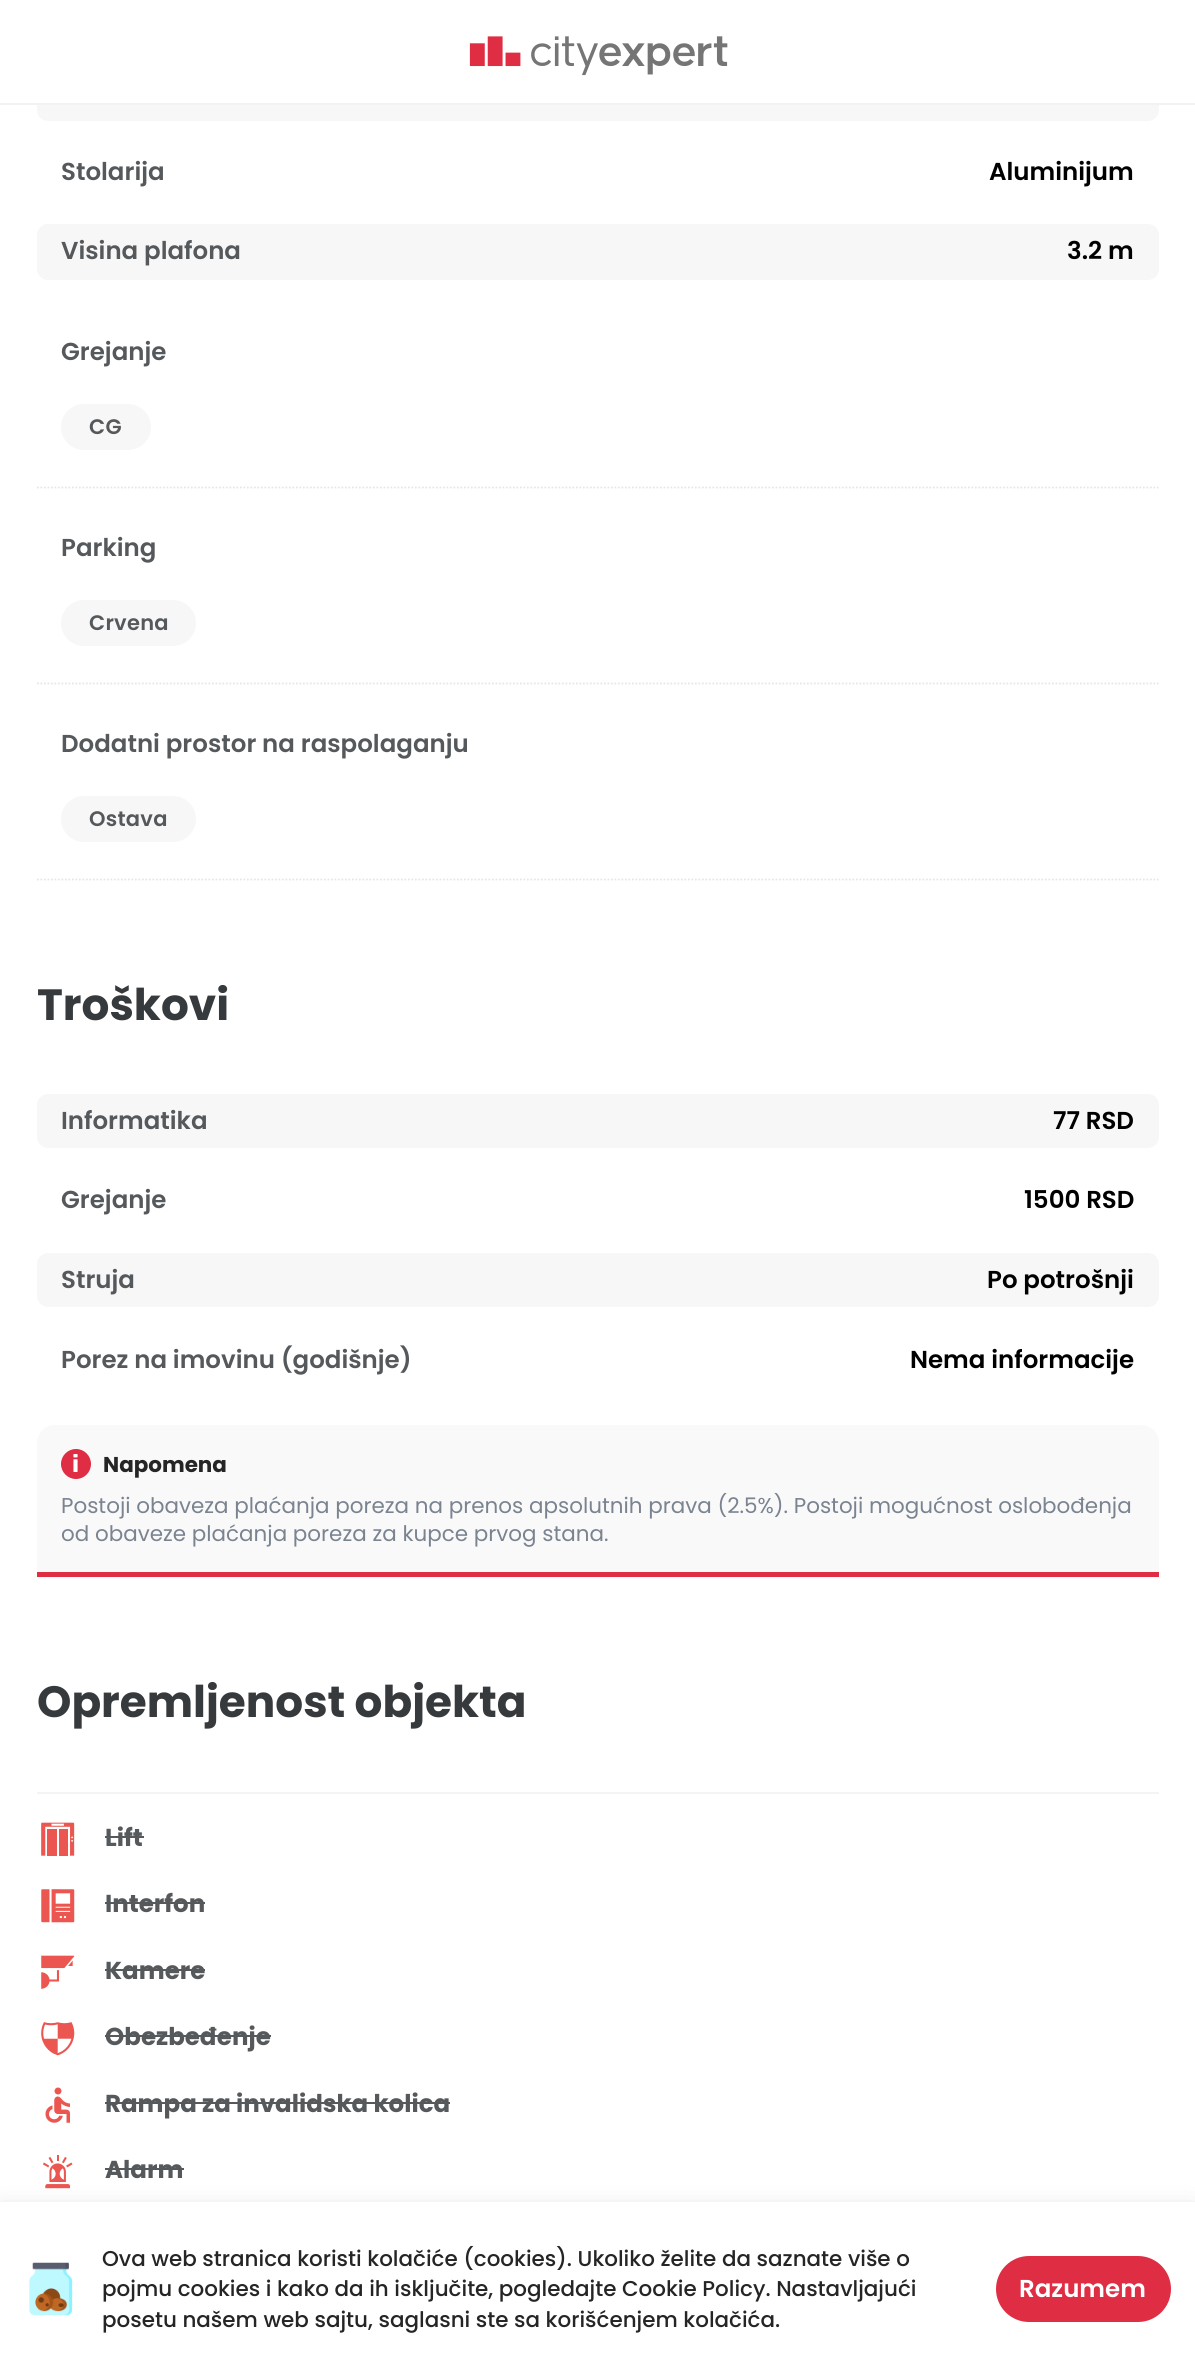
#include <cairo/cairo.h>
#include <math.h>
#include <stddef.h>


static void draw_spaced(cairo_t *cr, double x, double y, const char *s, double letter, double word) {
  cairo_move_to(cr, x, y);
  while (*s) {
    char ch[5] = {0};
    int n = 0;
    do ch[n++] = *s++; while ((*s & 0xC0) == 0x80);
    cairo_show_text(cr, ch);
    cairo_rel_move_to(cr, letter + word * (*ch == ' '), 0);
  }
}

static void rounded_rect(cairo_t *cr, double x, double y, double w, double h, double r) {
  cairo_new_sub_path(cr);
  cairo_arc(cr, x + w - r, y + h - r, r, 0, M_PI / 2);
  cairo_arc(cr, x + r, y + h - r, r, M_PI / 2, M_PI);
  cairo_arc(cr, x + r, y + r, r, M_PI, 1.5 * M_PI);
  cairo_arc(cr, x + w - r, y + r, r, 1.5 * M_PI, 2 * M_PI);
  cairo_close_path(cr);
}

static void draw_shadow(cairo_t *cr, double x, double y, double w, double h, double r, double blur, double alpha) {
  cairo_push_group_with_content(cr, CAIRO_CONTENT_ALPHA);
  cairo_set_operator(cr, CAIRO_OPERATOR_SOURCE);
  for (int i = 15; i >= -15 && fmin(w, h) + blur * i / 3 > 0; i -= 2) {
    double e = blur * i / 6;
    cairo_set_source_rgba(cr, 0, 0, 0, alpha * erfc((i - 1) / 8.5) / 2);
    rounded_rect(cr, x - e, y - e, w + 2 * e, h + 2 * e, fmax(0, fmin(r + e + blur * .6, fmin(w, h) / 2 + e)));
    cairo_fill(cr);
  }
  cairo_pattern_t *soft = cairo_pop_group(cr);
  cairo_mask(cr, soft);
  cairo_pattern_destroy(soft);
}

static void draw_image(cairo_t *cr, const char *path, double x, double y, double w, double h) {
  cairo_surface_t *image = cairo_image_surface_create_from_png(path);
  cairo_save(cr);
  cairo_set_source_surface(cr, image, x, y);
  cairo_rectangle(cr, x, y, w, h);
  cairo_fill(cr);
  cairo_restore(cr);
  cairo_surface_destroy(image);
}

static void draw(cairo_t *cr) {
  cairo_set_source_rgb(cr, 1, 1, 1);
  cairo_paint(cr);
  cairo_set_source_rgb(cr, 247 / 255.0, 247 / 255.0, 247 / 255.0);
  rounded_rect(cr, 37, 65, 1122, 56, 11);
  cairo_fill(cr);
  cairo_set_source_rgb(cr, 1, 1, 1);
  cairo_rectangle(cr, 37, 65, 1122, 38);
  cairo_fill(cr);
  cairo_set_source_rgb(cr, 242 / 255.0, 242 / 255.0, 242 / 255.0);
  cairo_rectangle(cr, 0, 103, 1195, 2);
  cairo_fill(cr);
  draw_image(cr, "images/1.png", 469, 36, 259, 40);
  cairo_set_source_rgb(cr, 247 / 255.0, 247 / 255.0, 247 / 255.0);
  rounded_rect(cr, 37, 224, 1122, 56, 11);
  cairo_fill(cr);
  cairo_new_path(cr);
  cairo_move_to(cr, 37, 487.5);
  cairo_line_to(cr, 1158.5, 487.5);
  cairo_set_source_rgb(cr, 230 / 255.0, 230 / 255.0, 230 / 255.0);
  cairo_set_line_width(cr, 1.8);
  cairo_set_dash(cr, (double[]){1.75, 1.75}, 2, 0);
  cairo_stroke(cr);
  cairo_set_source_rgb(cr, 247 / 255.0, 247 / 255.0, 247 / 255.0);
  rounded_rect(cr, 61, 404, 90, 46, 23);
  cairo_fill(cr);
  cairo_new_path(cr);
  cairo_move_to(cr, 37, 683.5);
  cairo_line_to(cr, 1158.5, 683.5);
  cairo_set_source_rgb(cr, 230 / 255.0, 230 / 255.0, 230 / 255.0);
  cairo_stroke(cr);
  cairo_set_source_rgb(cr, 247 / 255.0, 247 / 255.0, 247 / 255.0);
  rounded_rect(cr, 61, 600, 135, 46, 23);
  cairo_fill(cr);
  cairo_new_path(cr);
  cairo_move_to(cr, 37, 879.5);
  cairo_line_to(cr, 1158.5, 879.5);
  cairo_set_source_rgb(cr, 230 / 255.0, 230 / 255.0, 230 / 255.0);
  cairo_stroke(cr);
  cairo_set_source_rgb(cr, 247 / 255.0, 247 / 255.0, 247 / 255.0);
  rounded_rect(cr, 61, 796, 135, 46, 23);
  cairo_fill(cr);
  rounded_rect(cr, 37, 1094, 1122, 54, 11);
  cairo_fill(cr);
  rounded_rect(cr, 37, 1253, 1122, 54, 11);
  cairo_fill(cr);
  cairo_set_source_rgb(cr, 249 / 255.0, 249 / 255.0, 249 / 255.0);
  cairo_new_path(cr);
  cairo_move_to(cr, 55, 1425);
  cairo_line_to(cr, 1141, 1425);
  cairo_curve_to(cr, 1151, 1425, 1159, 1433, 1159, 1443);
  cairo_line_to(cr, 1159, 1572);
  cairo_line_to(cr, 37, 1572);
  cairo_line_to(cr, 37, 1443);
  cairo_curve_to(cr, 37, 1433, 45, 1425, 55, 1425);
  cairo_close_path(cr);
  cairo_fill(cr);
  cairo_set_source_rgb(cr, 223 / 255.0, 45 / 255.0, 67 / 255.0);
  cairo_rectangle(cr, 37, 1572, 1122, 5);
  cairo_fill(cr);
  cairo_arc(cr, 76, 1464, 15, 0, 2 * M_PI);
  cairo_fill(cr);
  cairo_set_source_rgb(cr, 243 / 255.0, 244 / 255.0, 246 / 255.0);
  cairo_rectangle(cr, 37, 1792, 1122, 2);
  cairo_fill(cr);
  draw_image(cr, "images/2.png", 41, 1822, 34, 34);
  cairo_set_source_rgb(cr, 85 / 255.0, 89 / 255.0, 92 / 255.0);
  cairo_rectangle(cr, 105, 1836, 39, 2);
  cairo_fill(cr);
  draw_image(cr, "images/3.png", 41, 1889, 34, 34);
  cairo_rectangle(cr, 105, 1902, 100, 2);
  cairo_fill(cr);
  draw_image(cr, "images/4.png", 41, 1955, 34, 34);
  cairo_rectangle(cr, 105, 1969, 100, 2);
  cairo_fill(cr);
  draw_image(cr, "images/5.png", 41, 2022, 34, 34);
  cairo_rectangle(cr, 105, 2035, 166, 2);
  cairo_fill(cr);
  draw_image(cr, "images/6.png", 45, 2087, 25, 36);
  cairo_rectangle(cr, 105, 2102, 345, 2);
  cairo_fill(cr);
  draw_image(cr, "images/7.png", 43, 2155, 30, 34);
  cairo_rectangle(cr, 105, 2168, 79, 2);
  cairo_fill(cr);
  cairo_set_source_rgb(cr, 81 / 255.0, 81 / 255.0, 81 / 255.0);
  draw_shadow(cr, 0, 2216, 1195, 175, 0, 14, 0.36);
  cairo_set_source_rgb(cr, 1, 1, 1);
  cairo_rectangle(cr, 0, 2202, 1195, 174);
  cairo_fill(cr);
  draw_image(cr, "images/8.png", 29, 2262, 44, 54);
  cairo_set_source_rgb(cr, 223 / 255.0, 45 / 255.0, 67 / 255.0);
  rounded_rect(cr, 996, 2256, 175, 66, 33);
  cairo_fill(cr);
  cairo_select_font_face(cr, "Poppins SemiBold", CAIRO_FONT_SLANT_NORMAL, CAIRO_FONT_WEIGHT_NORMAL);
  cairo_set_font_size(cr, 24.5);
  cairo_set_source_rgb(cr, 85 / 255.0, 89 / 255.0, 92 / 255.0);
  cairo_move_to(cr, 61, 180);
  cairo_show_text(cr, "Stolarija");
  cairo_set_source_rgb(cr, 0, 0, 0);
  cairo_move_to(cr, 989, 180);
  cairo_show_text(cr, "Aluminijum");
  cairo_set_source_rgb(cr, 85 / 255.0, 89 / 255.0, 92 / 255.0);
  cairo_move_to(cr, 61, 259);
  cairo_show_text(cr, "Visina plafona");
  cairo_set_source_rgb(cr, 0, 0, 0);
  cairo_move_to(cr, 1067, 259);
  cairo_show_text(cr, "3.2 m");
  cairo_set_source_rgb(cr, 85 / 255.0, 89 / 255.0, 92 / 255.0);
  cairo_move_to(cr, 61, 360);
  cairo_show_text(cr, "Grejanje");
  cairo_set_font_size(cr, 21);
  draw_spaced(cr, 89, 434, "CG", 0.25, 0);
  cairo_set_font_size(cr, 24.5);
  cairo_move_to(cr, 61, 556);
  cairo_show_text(cr, "Parking");
  cairo_set_font_size(cr, 21);
  draw_spaced(cr, 89, 630, "Crvena", 0.25, 0);
  cairo_set_font_size(cr, 24.5);
  cairo_move_to(cr, 61, 752);
  cairo_show_text(cr, "Dodatni prostor na raspolaganju");
  cairo_set_font_size(cr, 21);
  draw_spaced(cr, 89, 826, "Ostava", 0.25, 0);
  cairo_select_font_face(cr, "Poppins", CAIRO_FONT_SLANT_NORMAL, CAIRO_FONT_WEIGHT_BOLD);
  cairo_set_font_size(cr, 43.75);
  cairo_set_source_rgb(cr, 55 / 255.0, 58 / 255.0, 60 / 255.0);
  cairo_move_to(cr, 37, 1020);
  cairo_show_text(cr, "Troškovi");
  cairo_select_font_face(cr, "Poppins SemiBold", CAIRO_FONT_SLANT_NORMAL, CAIRO_FONT_WEIGHT_NORMAL);
  cairo_set_font_size(cr, 24.5);
  cairo_set_source_rgb(cr, 85 / 255.0, 89 / 255.0, 92 / 255.0);
  cairo_move_to(cr, 61, 1129);
  cairo_show_text(cr, "Informatika");
  cairo_set_source_rgb(cr, 0, 0, 0);
  cairo_move_to(cr, 1053, 1129);
  cairo_show_text(cr, "77 RSD");
  cairo_set_source_rgb(cr, 85 / 255.0, 89 / 255.0, 92 / 255.0);
  cairo_move_to(cr, 61, 1208);
  cairo_show_text(cr, "Grejanje");
  cairo_set_source_rgb(cr, 0, 0, 0);
  cairo_move_to(cr, 1024, 1208);
  cairo_show_text(cr, "1500 RSD");
  cairo_set_source_rgb(cr, 85 / 255.0, 89 / 255.0, 92 / 255.0);
  cairo_move_to(cr, 61, 1288);
  cairo_show_text(cr, "Struja");
  cairo_set_source_rgb(cr, 0, 0, 0);
  cairo_move_to(cr, 987, 1288);
  cairo_show_text(cr, "Po potrošnji");
  cairo_set_source_rgb(cr, 85 / 255.0, 89 / 255.0, 92 / 255.0);
  cairo_move_to(cr, 61, 1368);
  cairo_show_text(cr, "Porez na imovinu (godišnje)");
  cairo_set_source_rgb(cr, 0, 0, 0);
  cairo_move_to(cr, 910, 1368);
  cairo_show_text(cr, "Nema informacije");
  cairo_select_font_face(cr, "Rubik", CAIRO_FONT_SLANT_NORMAL, CAIRO_FONT_WEIGHT_BOLD);
  cairo_set_source_rgb(cr, 1, 1, 1);
  cairo_move_to(cr, 72, 1472);
  cairo_show_text(cr, "i");
  cairo_select_font_face(cr, "Poppins", CAIRO_FONT_SLANT_NORMAL, CAIRO_FONT_WEIGHT_BOLD);
  cairo_set_font_size(cr, 21.45);
  cairo_set_source_rgb(cr, 37 / 255.0, 37 / 255.0, 37 / 255.0);
  cairo_move_to(cr, 103, 1472);
  cairo_show_text(cr, "Napomena");
  cairo_select_font_face(cr, "Poppins", CAIRO_FONT_SLANT_NORMAL, CAIRO_FONT_WEIGHT_NORMAL);
  cairo_set_source_rgb(cr, 122 / 255.0, 131 / 255.0, 144 / 255.0);
  cairo_move_to(cr, 61, 1513);
  cairo_show_text(cr, "Postoji obaveza plaćanja poreza na prenos apsolutnih prava (2.5%). Postoji mogućnost oslobođenja");
  cairo_move_to(cr, 61, 1541);
  cairo_show_text(cr, "od obaveze plaćanja poreza za kupce prvog stana.");
  cairo_select_font_face(cr, "Poppins", CAIRO_FONT_SLANT_NORMAL, CAIRO_FONT_WEIGHT_BOLD);
  cairo_set_font_size(cr, 43.75);
  cairo_set_source_rgb(cr, 55 / 255.0, 58 / 255.0, 60 / 255.0);
  cairo_move_to(cr, 37, 1717);
  cairo_show_text(cr, "Opremljenost objekta");
  cairo_set_font_size(cr, 24.5);
  cairo_set_source_rgb(cr, 85 / 255.0, 89 / 255.0, 92 / 255.0);
  cairo_move_to(cr, 105, 1846);
  cairo_show_text(cr, "Lift");
  cairo_move_to(cr, 105, 1912);
  cairo_show_text(cr, "Interfon");
  cairo_move_to(cr, 105, 1979);
  cairo_show_text(cr, "Kamere");
  cairo_move_to(cr, 105, 2045);
  cairo_show_text(cr, "Obezbeđenje");
  cairo_move_to(cr, 105, 2112);
  cairo_show_text(cr, "Rampa za invalidska kolica");
  cairo_move_to(cr, 105, 2178);
  cairo_show_text(cr, "Alarm");
  cairo_select_font_face(cr, "Poppins Medium", CAIRO_FONT_SLANT_NORMAL, CAIRO_FONT_WEIGHT_NORMAL);
  cairo_set_font_size(cr, 21.45);
  cairo_set_source_rgb(cr, 37 / 255.0, 37 / 255.0, 37 / 255.0);
  cairo_move_to(cr, 102, 2266);
  cairo_show_text(cr, "Ova web stranica koristi kolačiće (cookies). Ukoliko želite da saznate više o");
  cairo_move_to(cr, 102, 2296);
  cairo_show_text(cr, "pojmu cookies i kako da ih isključite, pogledajte Cookie Policy. Nastavljajući");
  cairo_move_to(cr, 102, 2327);
  cairo_show_text(cr, "posetu našem web sajtu, saglasni ste sa korišćenjem kolačića.");
  cairo_select_font_face(cr, "Poppins SemiBold", CAIRO_FONT_SLANT_NORMAL, CAIRO_FONT_WEIGHT_NORMAL);
  cairo_set_font_size(cr, 24.5);
  cairo_set_source_rgb(cr, 1, 1, 1);
  cairo_move_to(cr, 1019, 2297);
  cairo_show_text(cr, "Razumem");
}

int main(void) {
  cairo_surface_t *surface = cairo_image_surface_create(CAIRO_FORMAT_RGB24, 1195, 2376);
  cairo_t *cr = cairo_create(surface);
  cairo_font_options_t *options = cairo_font_options_create();
  cairo_font_options_set_hint_metrics(options, CAIRO_HINT_METRICS_OFF);
  cairo_font_options_set_hint_style(options, CAIRO_HINT_STYLE_NONE);
  cairo_set_font_options(cr, options);
  cairo_set_miter_limit(cr, 4);
  draw(cr);
  cairo_surface_write_to_png(surface, "out.png");
  cairo_font_options_destroy(options);
  cairo_destroy(cr);
  cairo_surface_destroy(surface);
  return 0;
}
